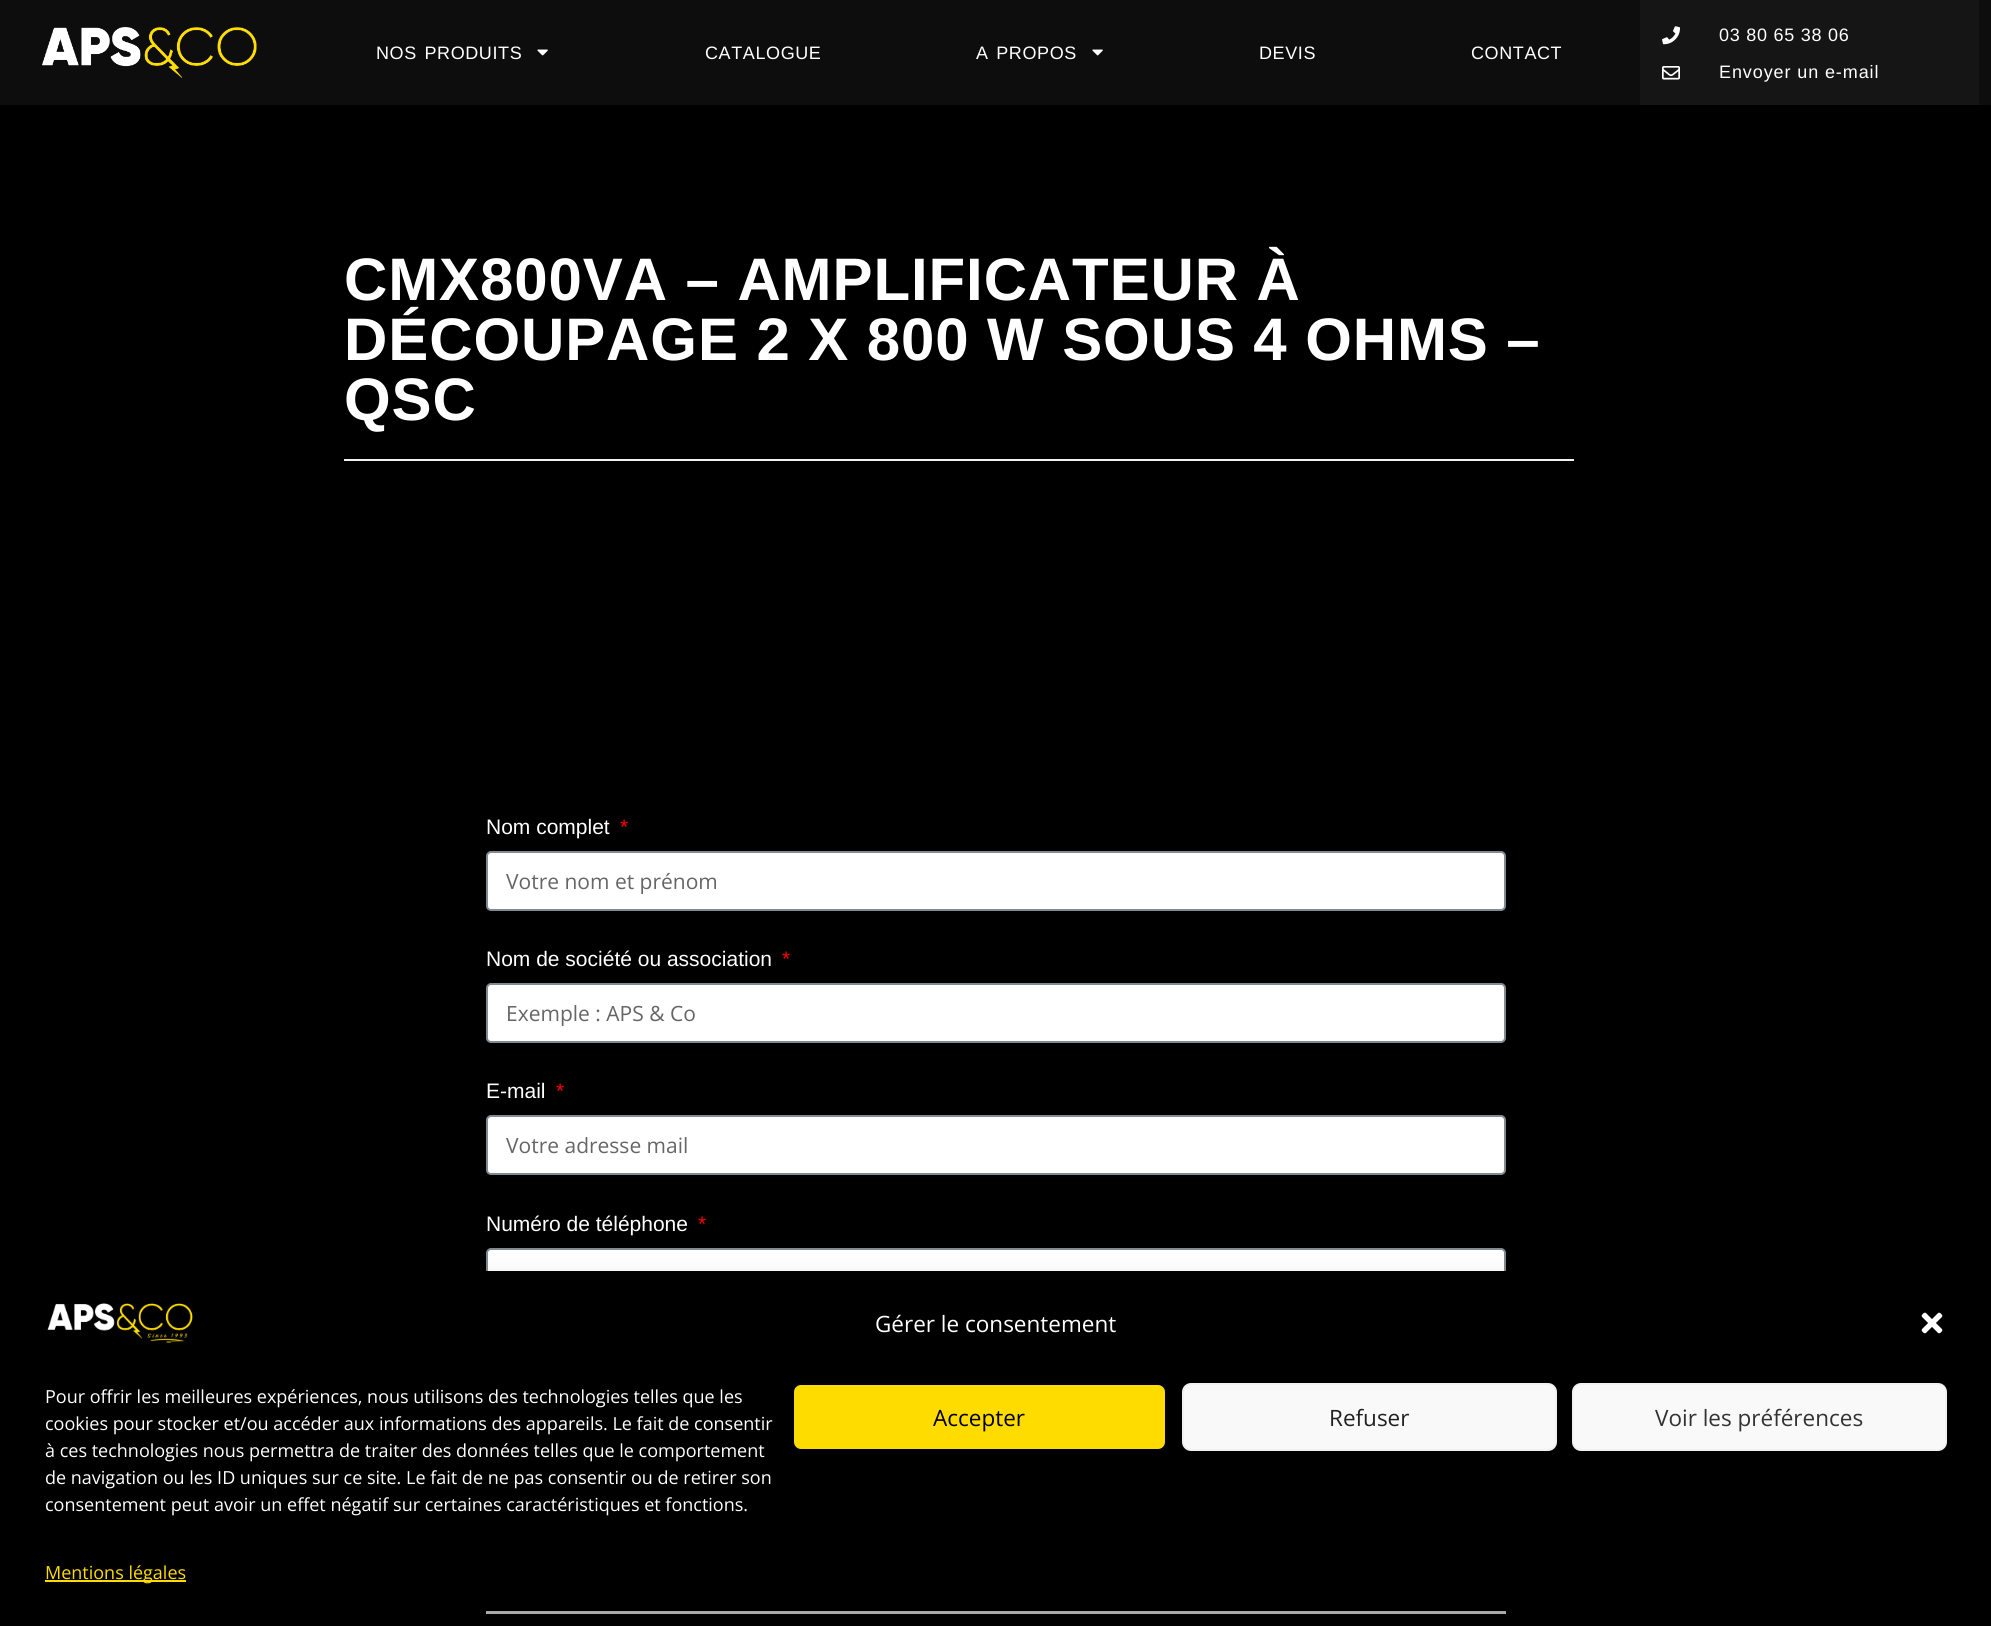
#include <cairo/cairo.h>
#include <math.h>
#include <stddef.h>


static void draw_spaced(cairo_t *cr, double x, double y, const char *s, double letter, double word) {
  cairo_move_to(cr, x, y);
  while (*s) {
    char ch[5] = {0};
    int n = 0;
    do ch[n++] = *s++; while ((*s & 0xC0) == 0x80);
    cairo_show_text(cr, ch);
    cairo_rel_move_to(cr, letter + word * (*ch == ' '), 0);
  }
}

static void rounded_rect(cairo_t *cr, double x, double y, double w, double h, double r) {
  cairo_new_sub_path(cr);
  cairo_arc(cr, x + w - r, y + h - r, r, 0, M_PI / 2);
  cairo_arc(cr, x + r, y + h - r, r, M_PI / 2, M_PI);
  cairo_arc(cr, x + r, y + r, r, M_PI, 1.5 * M_PI);
  cairo_arc(cr, x + w - r, y + r, r, 1.5 * M_PI, 2 * M_PI);
  cairo_close_path(cr);
}

static void draw_shadow(cairo_t *cr, double x, double y, double w, double h, double r, double blur, double alpha) {
  cairo_push_group_with_content(cr, CAIRO_CONTENT_ALPHA);
  cairo_set_operator(cr, CAIRO_OPERATOR_SOURCE);
  for (int i = 15; i >= -15 && fmin(w, h) + blur * i / 3 > 0; i -= 2) {
    double e = blur * i / 6;
    cairo_set_source_rgba(cr, 0, 0, 0, alpha * erfc((i - 1) / 8.5) / 2);
    rounded_rect(cr, x - e, y - e, w + 2 * e, h + 2 * e, fmax(0, fmin(r + e + blur * .6, fmin(w, h) / 2 + e)));
    cairo_fill(cr);
  }
  cairo_pattern_t *soft = cairo_pop_group(cr);
  cairo_mask(cr, soft);
  cairo_pattern_destroy(soft);
}

static void draw_image(cairo_t *cr, const char *path, double x, double y, double w, double h) {
  cairo_surface_t *image = cairo_image_surface_create_from_png(path);
  cairo_save(cr);
  cairo_set_source_surface(cr, image, x, y);
  cairo_rectangle(cr, x, y, w, h);
  cairo_fill(cr);
  cairo_restore(cr);
  cairo_surface_destroy(image);
}

static void draw(cairo_t *cr) {
  cairo_set_source_rgb(cr, 0, 0, 0);
  cairo_paint(cr);
  cairo_set_source_rgb(cr, 13 / 255.0, 13 / 255.0, 13 / 255.0);
  cairo_rectangle(cr, 0, 0, 1991, 105);
  cairo_fill(cr);
  draw_image(cr, "images/1.png", 42, 27, 215, 51);
  draw_image(cr, "images/2.png", 537, 49, 11, 7);
  draw_image(cr, "images/2.png", 1092, 49, 11, 7);
  cairo_set_source_rgb(cr, 21 / 255.0, 21 / 255.0, 21 / 255.0);
  cairo_rectangle(cr, 1640, 0, 339, 105);
  cairo_fill(cr);
  draw_image(cr, "images/3.png", 1662, 26, 18, 19);
  draw_image(cr, "images/4.png", 1662, 66, 18, 14);
  cairo_set_source_rgb(cr, 241 / 255.0, 241 / 255.0, 241 / 255.0);
  cairo_rectangle(cr, 344, 459, 1230, 2);
  cairo_fill(cr);
  cairo_set_source_rgb(cr, 1, 1, 1);
  rounded_rect(cr, 487, 852, 1018, 58, 4);
  cairo_fill_preserve(cr);
  cairo_set_source_rgb(cr, 129 / 255.0, 138 / 255.0, 145 / 255.0);
  cairo_stroke(cr);
  cairo_set_source_rgb(cr, 1, 1, 1);
  rounded_rect(cr, 487, 984, 1018, 58, 4);
  cairo_fill_preserve(cr);
  cairo_set_source_rgb(cr, 129 / 255.0, 138 / 255.0, 145 / 255.0);
  cairo_stroke(cr);
  cairo_set_source_rgb(cr, 1, 1, 1);
  rounded_rect(cr, 487, 1116, 1018, 58, 4);
  cairo_fill_preserve(cr);
  cairo_set_source_rgb(cr, 129 / 255.0, 138 / 255.0, 145 / 255.0);
  cairo_stroke(cr);
  cairo_set_source_rgb(cr, 1, 1, 1);
  rounded_rect(cr, 487, 1249, 1018, 58, 4);
  cairo_fill_preserve(cr);
  cairo_set_source_rgb(cr, 129 / 255.0, 138 / 255.0, 145 / 255.0);
  cairo_stroke(cr);
  cairo_set_source_rgb(cr, 1, 1, 1);
  cairo_rectangle(cr, 486, 1611, 1020, 3);
  cairo_fill(cr);
  cairo_set_source_rgb(cr, 0, 0, 0);
  draw_shadow(cr, 15, 1280, 1962, 340, 18, 4.5, 0.23);
  draw_shadow(cr, 15, 1286, 1962, 340, 18, 15, 0.19);
  cairo_set_source_rgb(cr, 0, 0, 0);
  rounded_rect(cr, 15, 1271, 1962, 340, 18);
  cairo_fill(cr);
  draw_image(cr, "images/5.png", 47, 1303, 146, 40);
  draw_image(cr, "images/6.png", 1921, 1312, 22, 22);
  cairo_set_source_rgb(cr, 1, 220 / 255.0, 0);
  rounded_rect(cr, 793, 1384, 373, 66, 8);
  cairo_fill_preserve(cr);
  cairo_set_source_rgb(cr, 0, 0, 24 / 255.0);
  cairo_stroke(cr);
  cairo_set_source_rgb(cr, 249 / 255.0, 249 / 255.0, 249 / 255.0);
  rounded_rect(cr, 1183, 1384, 373, 66, 8);
  cairo_fill_preserve(cr);
  cairo_set_source_rgb(cr, 242 / 255.0, 242 / 255.0, 242 / 255.0);
  cairo_stroke(cr);
  cairo_set_source_rgb(cr, 249 / 255.0, 249 / 255.0, 249 / 255.0);
  rounded_rect(cr, 1573, 1384, 373, 66, 8);
  cairo_fill_preserve(cr);
  cairo_set_source_rgb(cr, 242 / 255.0, 242 / 255.0, 242 / 255.0);
  cairo_stroke(cr);
  cairo_set_source_rgb(cr, 1, 220 / 255.0, 0);
  cairo_rectangle(cr, 45, 1580, 141, 2);
  cairo_fill(cr);
  cairo_select_font_face(cr, "Liberation Sans", CAIRO_FONT_SLANT_NORMAL, CAIRO_FONT_WEIGHT_NORMAL);
  cairo_set_font_size(cr, 18);
  cairo_set_source_rgb(cr, 1, 1, 1);
  draw_spaced(cr, 376, 59, "NOS PRODUITS", 0.6, 2);
  draw_spaced(cr, 705, 59, "CATALOGUE", 0.6, 0);
  draw_spaced(cr, 976, 59, "A PROPOS", 0.6, 2);
  draw_spaced(cr, 1259, 59, "DEVIS", 0.6, 0);
  draw_spaced(cr, 1471, 59, "CONTACT", 0.6, 0);
  draw_spaced(cr, 1719, 41, "03 80 65 38 06", 0.75, 0);
  draw_spaced(cr, 1719, 78, "Envoyer un e-mail", 0.9, 0);
  cairo_select_font_face(cr, "Liberation Sans", CAIRO_FONT_SLANT_NORMAL, CAIRO_FONT_WEIGHT_BOLD);
  cairo_set_font_size(cr, 60);
  draw_spaced(cr, 344, 300, "CMX800VA – AMPLIFICATEUR À", 0.9, 0);
  draw_spaced(cr, 344, 360, "DÉCOUPAGE 2 X 800 W SOUS 4 OHMS –", 0.9, 0);
  draw_spaced(cr, 344, 420, "QSC", 0.9, 0);
  cairo_select_font_face(cr, "Liberation Sans", CAIRO_FONT_SLANT_NORMAL, CAIRO_FONT_WEIGHT_NORMAL);
  cairo_set_font_size(cr, 21);
  cairo_move_to(cr, 486, 834);
  cairo_show_text(cr, "Nom complet");
  cairo_set_source_rgb(cr, 1, 0, 0);
  cairo_move_to(cr, 620, 834);
  cairo_show_text(cr, "*");
  cairo_select_font_face(cr, "Open Sans", CAIRO_FONT_SLANT_NORMAL, CAIRO_FONT_WEIGHT_NORMAL);
  cairo_set_source_rgb(cr, 102 / 255.0, 102 / 255.0, 102 / 255.0);
  cairo_move_to(cr, 506, 889);
  cairo_show_text(cr, "Votre nom et prénom");
  cairo_select_font_face(cr, "Liberation Sans", CAIRO_FONT_SLANT_NORMAL, CAIRO_FONT_WEIGHT_NORMAL);
  cairo_set_source_rgb(cr, 1, 1, 1);
  cairo_move_to(cr, 486, 966);
  cairo_show_text(cr, "Nom de société ou association");
  cairo_set_source_rgb(cr, 1, 0, 0);
  cairo_move_to(cr, 782, 966);
  cairo_show_text(cr, "*");
  cairo_select_font_face(cr, "Open Sans", CAIRO_FONT_SLANT_NORMAL, CAIRO_FONT_WEIGHT_NORMAL);
  cairo_set_source_rgb(cr, 102 / 255.0, 102 / 255.0, 102 / 255.0);
  cairo_move_to(cr, 506, 1021);
  cairo_show_text(cr, "Exemple : APS & Co");
  cairo_select_font_face(cr, "Liberation Sans", CAIRO_FONT_SLANT_NORMAL, CAIRO_FONT_WEIGHT_NORMAL);
  cairo_set_source_rgb(cr, 1, 1, 1);
  cairo_move_to(cr, 486, 1098);
  cairo_show_text(cr, "E-mail");
  cairo_set_source_rgb(cr, 1, 0, 0);
  cairo_move_to(cr, 556, 1098);
  cairo_show_text(cr, "*");
  cairo_select_font_face(cr, "Open Sans", CAIRO_FONT_SLANT_NORMAL, CAIRO_FONT_WEIGHT_NORMAL);
  cairo_set_source_rgb(cr, 102 / 255.0, 102 / 255.0, 102 / 255.0);
  cairo_move_to(cr, 506, 1153);
  cairo_show_text(cr, "Votre adresse mail");
  cairo_select_font_face(cr, "Liberation Sans", CAIRO_FONT_SLANT_NORMAL, CAIRO_FONT_WEIGHT_NORMAL);
  cairo_set_source_rgb(cr, 1, 1, 1);
  cairo_move_to(cr, 486, 1231);
  cairo_show_text(cr, "Numéro de téléphone");
  cairo_set_source_rgb(cr, 1, 0, 0);
  cairo_move_to(cr, 698, 1231);
  cairo_show_text(cr, "*");
  cairo_select_font_face(cr, "Open Sans", CAIRO_FONT_SLANT_NORMAL, CAIRO_FONT_WEIGHT_NORMAL);
  cairo_set_font_size(cr, 22.5);
  cairo_set_source_rgb(cr, 1, 1, 1);
  cairo_move_to(cr, 875, 1332);
  cairo_show_text(cr, "Gérer le consentement");
  cairo_set_font_size(cr, 18);
  cairo_move_to(cr, 45, 1403);
  cairo_show_text(cr, "Pour offrir les meilleures expériences, nous utilisons des technologies telles que les");
  cairo_move_to(cr, 45, 1430);
  cairo_show_text(cr, "cookies pour stocker et/ou accéder aux informations des appareils. Le fait de consentir");
  cairo_move_to(cr, 45, 1457);
  cairo_show_text(cr, "à ces technologies nous permettra de traiter des données telles que le comportement");
  cairo_move_to(cr, 45, 1484);
  cairo_show_text(cr, "de navigation ou les ID uniques sur ce site. Le fait de ne pas consentir ou de retirer son");
  cairo_move_to(cr, 45, 1511);
  cairo_show_text(cr, "consentement peut avoir un effet négatif sur certaines caractéristiques et fonctions.");
  cairo_set_font_size(cr, 22.5);
  cairo_set_source_rgb(cr, 0, 0, 0);
  cairo_move_to(cr, 933, 1426);
  cairo_show_text(cr, "Accepter");
  cairo_set_source_rgb(cr, 34 / 255.0, 34 / 255.0, 34 / 255.0);
  cairo_move_to(cr, 1329, 1426);
  cairo_show_text(cr, "Refuser");
  cairo_set_source_rgb(cr, 51 / 255.0, 51 / 255.0, 51 / 255.0);
  cairo_move_to(cr, 1655, 1426);
  cairo_show_text(cr, "Voir les préférences");
  cairo_set_font_size(cr, 18);
  cairo_set_source_rgb(cr, 1, 220 / 255.0, 0);
  cairo_move_to(cr, 45, 1579);
  cairo_show_text(cr, "Mentions légales");
}

int main(void) {
  cairo_surface_t *surface = cairo_image_surface_create(CAIRO_FORMAT_RGB24, 1991, 1626);
  cairo_t *cr = cairo_create(surface);
  cairo_font_options_t *options = cairo_font_options_create();
  cairo_font_options_set_hint_metrics(options, CAIRO_HINT_METRICS_OFF);
  cairo_font_options_set_hint_style(options, CAIRO_HINT_STYLE_NONE);
  cairo_set_font_options(cr, options);
  cairo_set_miter_limit(cr, 4);
  draw(cr);
  cairo_surface_write_to_png(surface, "out.png");
  cairo_font_options_destroy(options);
  cairo_destroy(cr);
  cairo_surface_destroy(surface);
  return 0;
}
